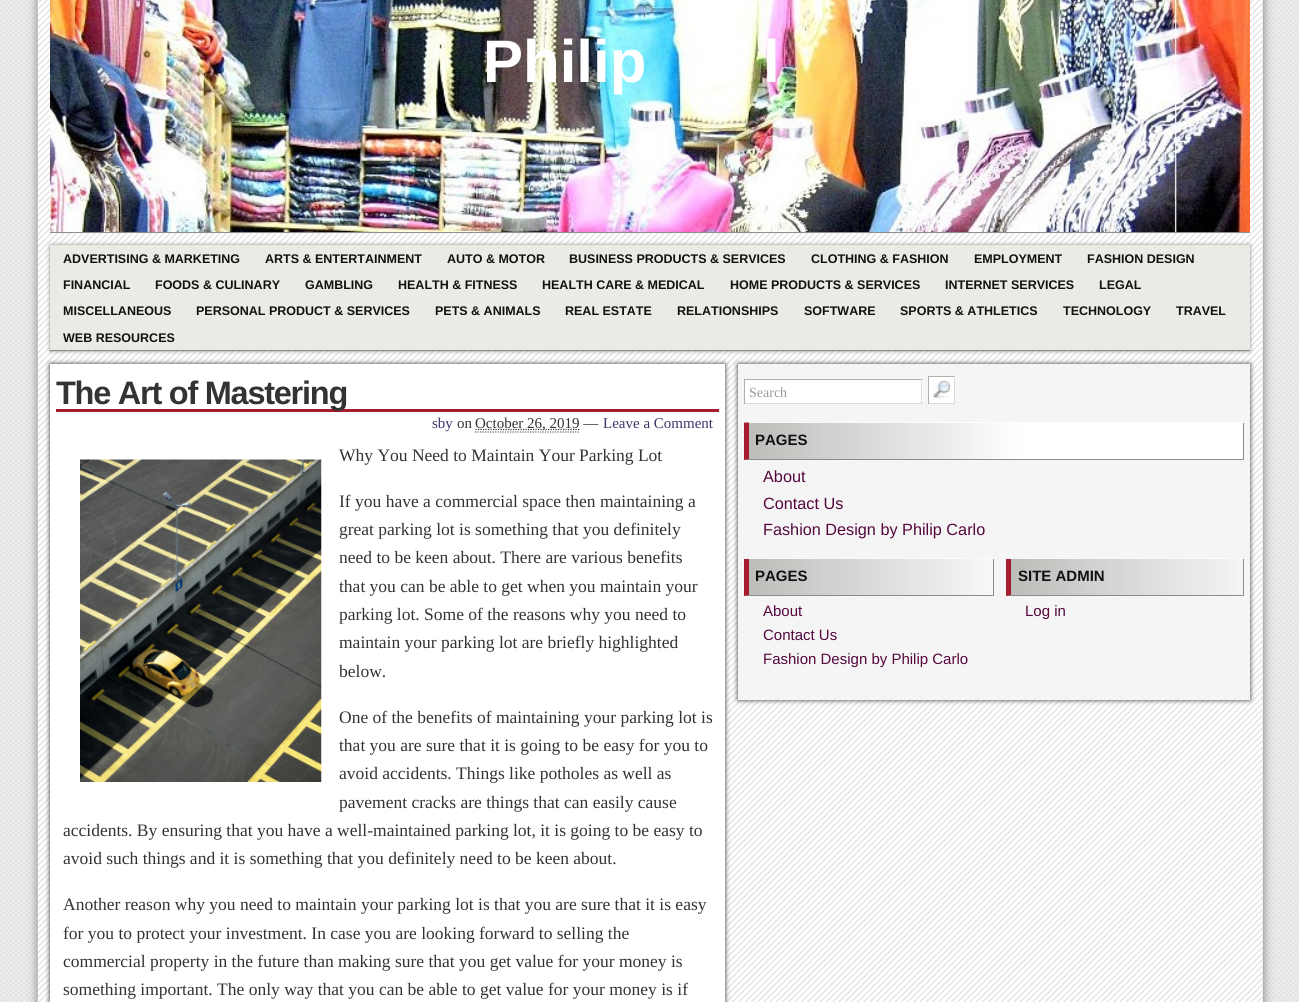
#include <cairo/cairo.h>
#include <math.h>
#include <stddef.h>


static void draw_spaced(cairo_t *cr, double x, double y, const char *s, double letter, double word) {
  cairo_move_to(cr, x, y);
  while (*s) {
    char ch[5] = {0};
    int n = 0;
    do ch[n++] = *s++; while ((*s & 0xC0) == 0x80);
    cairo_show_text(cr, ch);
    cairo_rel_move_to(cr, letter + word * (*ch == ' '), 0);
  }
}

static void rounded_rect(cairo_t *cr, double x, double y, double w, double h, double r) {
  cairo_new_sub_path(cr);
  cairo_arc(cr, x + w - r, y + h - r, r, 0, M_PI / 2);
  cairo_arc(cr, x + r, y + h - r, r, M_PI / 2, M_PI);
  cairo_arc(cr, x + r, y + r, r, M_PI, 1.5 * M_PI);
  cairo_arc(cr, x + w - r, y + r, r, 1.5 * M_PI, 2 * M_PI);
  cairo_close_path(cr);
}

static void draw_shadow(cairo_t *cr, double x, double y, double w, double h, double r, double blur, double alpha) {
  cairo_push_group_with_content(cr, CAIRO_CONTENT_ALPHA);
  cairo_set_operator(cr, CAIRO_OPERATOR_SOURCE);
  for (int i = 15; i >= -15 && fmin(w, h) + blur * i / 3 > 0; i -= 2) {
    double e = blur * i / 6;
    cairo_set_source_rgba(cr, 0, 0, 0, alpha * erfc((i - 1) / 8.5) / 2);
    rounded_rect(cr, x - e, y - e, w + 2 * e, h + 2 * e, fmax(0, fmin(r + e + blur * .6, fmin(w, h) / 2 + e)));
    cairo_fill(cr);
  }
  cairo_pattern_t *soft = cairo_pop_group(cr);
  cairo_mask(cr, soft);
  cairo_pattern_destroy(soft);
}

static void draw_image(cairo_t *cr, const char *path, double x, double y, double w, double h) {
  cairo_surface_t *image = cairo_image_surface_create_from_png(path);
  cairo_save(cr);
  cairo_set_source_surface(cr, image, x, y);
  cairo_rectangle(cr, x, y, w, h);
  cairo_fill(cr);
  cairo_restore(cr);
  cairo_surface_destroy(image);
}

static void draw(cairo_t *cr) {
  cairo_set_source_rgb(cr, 1, 1, 1);
  cairo_paint(cr);
  draw_image(cr, "images/1.png", 0, 0, 1299, 1002);
  cairo_set_source_rgb(cr, 0, 0, 0);
  draw_shadow(cr, 38, -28, 1225, 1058, 13, 5, 0.5);
  cairo_set_source_rgb(cr, 235 / 255.0, 235 / 255.0, 235 / 255.0);
  cairo_rectangle(cr, 1262, 0, 1, 1002);
  cairo_fill(cr);
  draw_image(cr, "images/2.png", 37, 0, 1226, 1002);
  cairo_set_source_rgb(cr, 142 / 255.0, 142 / 255.0, 142 / 255.0);
  cairo_rectangle(cr, 50, 232, 1200, 1);
  cairo_fill(cr);
  draw_image(cr, "images/3.png", 50, 0, 1200, 232);
  cairo_set_source_rgb(cr, 141 / 255.0, 139 / 255.0, 140 / 255.0);
  draw_shadow(cr, 50, 245, 1200, 106, 0, 2, 1);
  cairo_set_source_rgb(cr, 235 / 255.0, 235 / 255.0, 229 / 255.0);
  cairo_rectangle(cr, 50, 245, 1200, 105);
  cairo_fill(cr);
  cairo_set_source_rgb(cr, 141 / 255.0, 139 / 255.0, 140 / 255.0);
  cairo_rectangle(cr, 50, 350, 1200, 1);
  cairo_fill(cr);
  cairo_set_source_rgb(cr, 51 / 255.0, 51 / 255.0, 51 / 255.0);
  draw_shadow(cr, 50, 364, 675, 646, 0, 2.5, 1);
  cairo_set_source_rgb(cr, 1, 1, 1);
  cairo_rectangle(cr, 50, 364, 675, 638);
  cairo_fill(cr);
  cairo_set_source_rgb(cr, 165 / 255.0, 28 / 255.0, 48 / 255.0);
  cairo_rectangle(cr, 56, 409, 663, 3);
  cairo_fill(cr);
  cairo_new_path(cr);
  cairo_move_to(cr, 475, 432);
  cairo_line_to(cr, 580, 432);
  cairo_set_source_rgb(cr, 102 / 255.0, 102 / 255.0, 102 / 255.0);
  cairo_set_line_width(cr, 1.2);
  cairo_set_dash(cr, (double[]){1.25, 1.25}, 2, 0);
  cairo_stroke(cr);
  cairo_new_path(cr);
  cairo_move_to(cr, 475.5, 429.5);
  cairo_line_to(cr, 580, 429.5);
  cairo_set_source_rgb(cr, 51 / 255.0, 51 / 255.0, 51 / 255.0);
  cairo_stroke(cr);
  draw_image(cr, "images/4.png", 80, 459, 242, 323);
  cairo_set_source_rgb(cr, 51 / 255.0, 51 / 255.0, 51 / 255.0);
  draw_shadow(cr, 738, 364, 512, 336, 0, 2.5, 1);
  cairo_set_source_rgb(cr, 245 / 255.0, 245 / 255.0, 245 / 255.0);
  cairo_rectangle(cr, 738, 364, 512, 336);
  cairo_fill(cr);
  cairo_set_source_rgb(cr, 176 / 255.0, 176 / 255.0, 173 / 255.0);
  cairo_rectangle(cr, 928, 376, 27, 1);
  cairo_fill(cr);
  cairo_set_source_rgb(cr, 222 / 255.0, 217 / 255.0, 220 / 255.0);
  cairo_rectangle(cr, 954, 376, 1, 28);
  cairo_fill(cr);
  cairo_rectangle(cr, 928, 403, 27, 1);
  cairo_fill(cr);
  cairo_set_source_rgb(cr, 176 / 255.0, 176 / 255.0, 173 / 255.0);
  cairo_rectangle(cr, 928, 376, 1, 28);
  cairo_fill(cr);
  cairo_set_source_rgb(cr, 1, 1, 1);
  cairo_rectangle(cr, 929, 377, 25, 26);
  cairo_fill(cr);
  cairo_rectangle(cr, 745, 380, 178, 23);
  cairo_fill(cr);
  cairo_set_source_rgb(cr, 176 / 255.0, 176 / 255.0, 173 / 255.0);
  cairo_rectangle(cr, 744, 379, 179, 1);
  cairo_fill(cr);
  cairo_set_source_rgb(cr, 222 / 255.0, 217 / 255.0, 220 / 255.0);
  cairo_rectangle(cr, 921, 379, 1, 25);
  cairo_fill(cr);
  cairo_rectangle(cr, 744, 403, 179, 1);
  cairo_fill(cr);
  cairo_set_source_rgb(cr, 176 / 255.0, 176 / 255.0, 173 / 255.0);
  cairo_rectangle(cr, 744, 379, 1, 25);
  cairo_fill(cr);
  draw_image(cr, "images/5.png", 933, 380, 17, 19);
  cairo_rectangle(cr, 744, 423, 499, 37);
  cairo_fill(cr);
  draw_image(cr, "images/6.png", 749, 422, 495, 38);
  cairo_set_source_rgb(cr, 141 / 255.0, 139 / 255.0, 140 / 255.0);
  cairo_rectangle(cr, 1243, 423, 1, 37);
  cairo_fill(cr);
  cairo_new_path(cr);
  cairo_move_to(cr, 1244, 460);
  cairo_line_to(cr, 744, 460);
  cairo_line_to(cr, 749, 459);
  cairo_line_to(cr, 1242, 459);
  cairo_close_path(cr);
  cairo_fill(cr);
  cairo_set_source_rgb(cr, 165 / 255.0, 28 / 255.0, 48 / 255.0);
  cairo_new_path(cr);
  cairo_move_to(cr, 744, 460);
  cairo_line_to(cr, 744, 422.5);
  cairo_line_to(cr, 749, 422.5);
  cairo_line_to(cr, 749, 459);
  cairo_close_path(cr);
  cairo_fill(cr);
  cairo_set_source_rgb(cr, 176 / 255.0, 176 / 255.0, 173 / 255.0);
  cairo_rectangle(cr, 744, 559, 249, 37);
  cairo_fill(cr);
  draw_image(cr, "images/7.png", 749, 558, 245, 38);
  cairo_set_source_rgb(cr, 141 / 255.0, 139 / 255.0, 140 / 255.0);
  cairo_rectangle(cr, 993, 559, 1, 37);
  cairo_fill(cr);
  cairo_new_path(cr);
  cairo_move_to(cr, 994, 596);
  cairo_line_to(cr, 744, 596);
  cairo_line_to(cr, 749, 595);
  cairo_line_to(cr, 992, 595);
  cairo_close_path(cr);
  cairo_fill(cr);
  cairo_set_source_rgb(cr, 165 / 255.0, 28 / 255.0, 48 / 255.0);
  cairo_new_path(cr);
  cairo_move_to(cr, 744, 596);
  cairo_line_to(cr, 744, 559);
  cairo_line_to(cr, 749, 559);
  cairo_line_to(cr, 749, 595);
  cairo_close_path(cr);
  cairo_fill(cr);
  cairo_set_source_rgb(cr, 176 / 255.0, 176 / 255.0, 173 / 255.0);
  cairo_rectangle(cr, 1006, 559, 237, 37);
  cairo_fill(cr);
  draw_image(cr, "images/8.png", 1011, 558, 233, 38);
  cairo_set_source_rgb(cr, 141 / 255.0, 139 / 255.0, 140 / 255.0);
  cairo_rectangle(cr, 1243, 559, 1, 37);
  cairo_fill(cr);
  cairo_new_path(cr);
  cairo_move_to(cr, 1244, 596);
  cairo_line_to(cr, 1006, 596);
  cairo_line_to(cr, 1011, 595);
  cairo_line_to(cr, 1242, 595);
  cairo_close_path(cr);
  cairo_fill(cr);
  cairo_set_source_rgb(cr, 165 / 255.0, 28 / 255.0, 48 / 255.0);
  cairo_new_path(cr);
  cairo_move_to(cr, 1006, 596);
  cairo_line_to(cr, 1006, 559);
  cairo_line_to(cr, 1011, 559);
  cairo_line_to(cr, 1011, 595);
  cairo_close_path(cr);
  cairo_fill(cr);
  cairo_select_font_face(cr, "Liberation Sans", CAIRO_FONT_SLANT_NORMAL, CAIRO_FONT_WEIGHT_BOLD);
  cairo_set_font_size(cr, 60);
  cairo_set_source_rgb(cr, 1, 1, 1);
  cairo_move_to(cr, 483, 82);
  cairo_show_text(cr, "Philip");
  cairo_move_to(cr, 763, 82);
  cairo_show_text(cr, "l");
  cairo_set_font_size(cr, 12.5);
  cairo_set_source_rgb(cr, 17 / 255.0, 17 / 255.0, 17 / 255.0);
  cairo_move_to(cr, 63, 263);
  cairo_show_text(cr, "ADVERTISING & MARKETING");
  cairo_move_to(cr, 265, 263);
  cairo_show_text(cr, "ARTS & ENTERTAINMENT");
  cairo_move_to(cr, 447, 263);
  cairo_show_text(cr, "AUTO & MOTOR");
  cairo_move_to(cr, 569, 263);
  cairo_show_text(cr, "BUSINESS PRODUCTS & SERVICES");
  cairo_move_to(cr, 811, 263);
  cairo_show_text(cr, "CLOTHING & FASHION");
  cairo_move_to(cr, 974, 263);
  cairo_show_text(cr, "EMPLOYMENT");
  cairo_move_to(cr, 1087, 263);
  cairo_show_text(cr, "FASHION DESIGN");
  cairo_move_to(cr, 63, 289);
  cairo_show_text(cr, "FINANCIAL");
  cairo_move_to(cr, 155, 289);
  cairo_show_text(cr, "FOODS & CULINARY");
  cairo_move_to(cr, 305, 289);
  cairo_show_text(cr, "GAMBLING");
  cairo_move_to(cr, 398, 289);
  cairo_show_text(cr, "HEALTH & FITNESS");
  cairo_move_to(cr, 542, 289);
  cairo_show_text(cr, "HEALTH CARE & MEDICAL");
  cairo_move_to(cr, 730, 289);
  cairo_show_text(cr, "HOME PRODUCTS & SERVICES");
  cairo_move_to(cr, 945, 289);
  cairo_show_text(cr, "INTERNET SERVICES");
  cairo_move_to(cr, 1099, 289);
  cairo_show_text(cr, "LEGAL");
  cairo_move_to(cr, 63, 315);
  cairo_show_text(cr, "MISCELLANEOUS");
  cairo_move_to(cr, 196, 315);
  cairo_show_text(cr, "PERSONAL PRODUCT & SERVICES");
  cairo_move_to(cr, 435, 315);
  cairo_show_text(cr, "PETS & ANIMALS");
  cairo_move_to(cr, 565, 315);
  cairo_show_text(cr, "REAL ESTATE");
  cairo_move_to(cr, 677, 315);
  cairo_show_text(cr, "RELATIONSHIPS");
  cairo_move_to(cr, 804, 315);
  cairo_show_text(cr, "SOFTWARE");
  cairo_move_to(cr, 900, 315);
  cairo_show_text(cr, "SPORTS & ATHLETICS");
  cairo_move_to(cr, 1063, 315);
  cairo_show_text(cr, "TECHNOLOGY");
  cairo_move_to(cr, 1176, 315);
  cairo_show_text(cr, "TRAVEL");
  cairo_move_to(cr, 63, 342);
  cairo_show_text(cr, "WEB RESOURCES");
  cairo_set_font_size(cr, 32.5);
  cairo_set_source_rgb(cr, 51 / 255.0, 51 / 255.0, 51 / 255.0);
  draw_spaced(cr, 56, 404, "The Art of Mastering", -1.25, 0);
  cairo_select_font_face(cr, "Liberation Serif", CAIRO_FONT_SLANT_NORMAL, CAIRO_FONT_WEIGHT_NORMAL);
  cairo_set_font_size(cr, 15);
  cairo_set_source_rgb(cr, 64 / 255.0, 51 / 255.0, 105 / 255.0);
  cairo_move_to(cr, 432, 428);
  cairo_show_text(cr, "sby");
  cairo_set_source_rgb(cr, 51 / 255.0, 51 / 255.0, 51 / 255.0);
  cairo_move_to(cr, 457, 428);
  cairo_show_text(cr, "on");
  cairo_move_to(cr, 475, 428);
  cairo_show_text(cr, "October 26, 2019 —");
  cairo_set_source_rgb(cr, 64 / 255.0, 51 / 255.0, 105 / 255.0);
  cairo_move_to(cr, 603, 428);
  cairo_show_text(cr, "Leave a Comment");
  cairo_set_font_size(cr, 17.5);
  cairo_set_source_rgb(cr, 51 / 255.0, 51 / 255.0, 51 / 255.0);
  cairo_move_to(cr, 339, 461);
  cairo_show_text(cr, "Why You Need to Maintain Your Parking Lot");
  cairo_move_to(cr, 339, 507);
  cairo_show_text(cr, "If you have a commercial space then maintaining a");
  cairo_move_to(cr, 339, 535);
  cairo_show_text(cr, "great parking lot is something that you definitely");
  cairo_move_to(cr, 339, 563);
  cairo_show_text(cr, "need to be keen about. There are various benefits");
  cairo_move_to(cr, 339, 592);
  cairo_show_text(cr, "that you can be able to get when you maintain your");
  cairo_move_to(cr, 339, 620);
  cairo_show_text(cr, "parking lot. Some of the reasons why you need to");
  cairo_move_to(cr, 339, 648);
  cairo_show_text(cr, "maintain your parking lot are briefly highlighted");
  cairo_move_to(cr, 339, 677);
  cairo_show_text(cr, "below.");
  cairo_move_to(cr, 339, 723);
  cairo_show_text(cr, "One of the benefits of maintaining your parking lot is");
  cairo_move_to(cr, 339, 751);
  cairo_show_text(cr, "that you are sure that it is going to be easy for you to");
  cairo_move_to(cr, 339, 779);
  cairo_show_text(cr, "avoid accidents. Things like potholes as well as");
  cairo_move_to(cr, 339, 808);
  cairo_show_text(cr, "pavement cracks are things that can easily cause");
  cairo_move_to(cr, 63, 836);
  cairo_show_text(cr, "accidents. By ensuring that you have a well-maintained parking lot, it is going to be easy to");
  cairo_move_to(cr, 63, 864);
  cairo_show_text(cr, "avoid such things and it is something that you definitely need to be keen about.");
  cairo_move_to(cr, 63, 910);
  cairo_show_text(cr, "Another reason why you need to maintain your parking lot is that you are sure that it is easy");
  cairo_move_to(cr, 63, 939);
  cairo_show_text(cr, "for you to protect your investment. In case you are looking forward to selling the");
  cairo_move_to(cr, 63, 967);
  cairo_show_text(cr, "commercial property in the future than making sure that you get value for your money is");
  cairo_move_to(cr, 63, 995);
  cairo_show_text(cr, "something important. The only way that you can be able to get value for your money is if");
  cairo_set_font_size(cr, 14);
  cairo_set_source_rgb(cr, 153 / 255.0, 153 / 255.0, 153 / 255.0);
  cairo_move_to(cr, 749, 397);
  cairo_show_text(cr, "Search");
  cairo_select_font_face(cr, "Liberation Sans", CAIRO_FONT_SLANT_NORMAL, CAIRO_FONT_WEIGHT_BOLD);
  cairo_set_font_size(cr, 15);
  cairo_set_source_rgb(cr, 17 / 255.0, 17 / 255.0, 17 / 255.0);
  cairo_move_to(cr, 755, 445);
  cairo_show_text(cr, "PAGES");
  cairo_select_font_face(cr, "Liberation Sans", CAIRO_FONT_SLANT_NORMAL, CAIRO_FONT_WEIGHT_NORMAL);
  cairo_set_font_size(cr, 16.25);
  cairo_set_source_rgb(cr, 85 / 255.0, 7 / 255.0, 62 / 255.0);
  cairo_move_to(cr, 763, 482);
  cairo_show_text(cr, "About");
  cairo_move_to(cr, 763, 509);
  cairo_show_text(cr, "Contact Us");
  cairo_move_to(cr, 763, 535);
  cairo_show_text(cr, "Fashion Design by Philip Carlo");
  cairo_select_font_face(cr, "Liberation Sans", CAIRO_FONT_SLANT_NORMAL, CAIRO_FONT_WEIGHT_BOLD);
  cairo_set_font_size(cr, 15);
  cairo_set_source_rgb(cr, 17 / 255.0, 17 / 255.0, 17 / 255.0);
  cairo_move_to(cr, 755, 581);
  cairo_show_text(cr, "PAGES");
  cairo_select_font_face(cr, "Liberation Sans", CAIRO_FONT_SLANT_NORMAL, CAIRO_FONT_WEIGHT_NORMAL);
  cairo_set_source_rgb(cr, 85 / 255.0, 7 / 255.0, 62 / 255.0);
  cairo_move_to(cr, 763, 616);
  cairo_show_text(cr, "About");
  cairo_move_to(cr, 763, 640);
  cairo_show_text(cr, "Contact Us");
  cairo_move_to(cr, 763, 664);
  cairo_show_text(cr, "Fashion Design by Philip Carlo");
  cairo_select_font_face(cr, "Liberation Sans", CAIRO_FONT_SLANT_NORMAL, CAIRO_FONT_WEIGHT_BOLD);
  cairo_set_source_rgb(cr, 17 / 255.0, 17 / 255.0, 17 / 255.0);
  cairo_move_to(cr, 1018, 581);
  cairo_show_text(cr, "SITE ADMIN");
  cairo_select_font_face(cr, "Liberation Sans", CAIRO_FONT_SLANT_NORMAL, CAIRO_FONT_WEIGHT_NORMAL);
  cairo_set_source_rgb(cr, 85 / 255.0, 7 / 255.0, 62 / 255.0);
  cairo_move_to(cr, 1025, 616);
  cairo_show_text(cr, "Log in");
}

int main(void) {
  cairo_surface_t *surface = cairo_image_surface_create(CAIRO_FORMAT_RGB24, 1299, 1002);
  cairo_t *cr = cairo_create(surface);
  cairo_font_options_t *options = cairo_font_options_create();
  cairo_font_options_set_hint_metrics(options, CAIRO_HINT_METRICS_OFF);
  cairo_font_options_set_hint_style(options, CAIRO_HINT_STYLE_NONE);
  cairo_set_font_options(cr, options);
  cairo_set_miter_limit(cr, 4);
  draw(cr);
  cairo_surface_write_to_png(surface, "out.png");
  cairo_font_options_destroy(options);
  cairo_destroy(cr);
  cairo_surface_destroy(surface);
  return 0;
}
